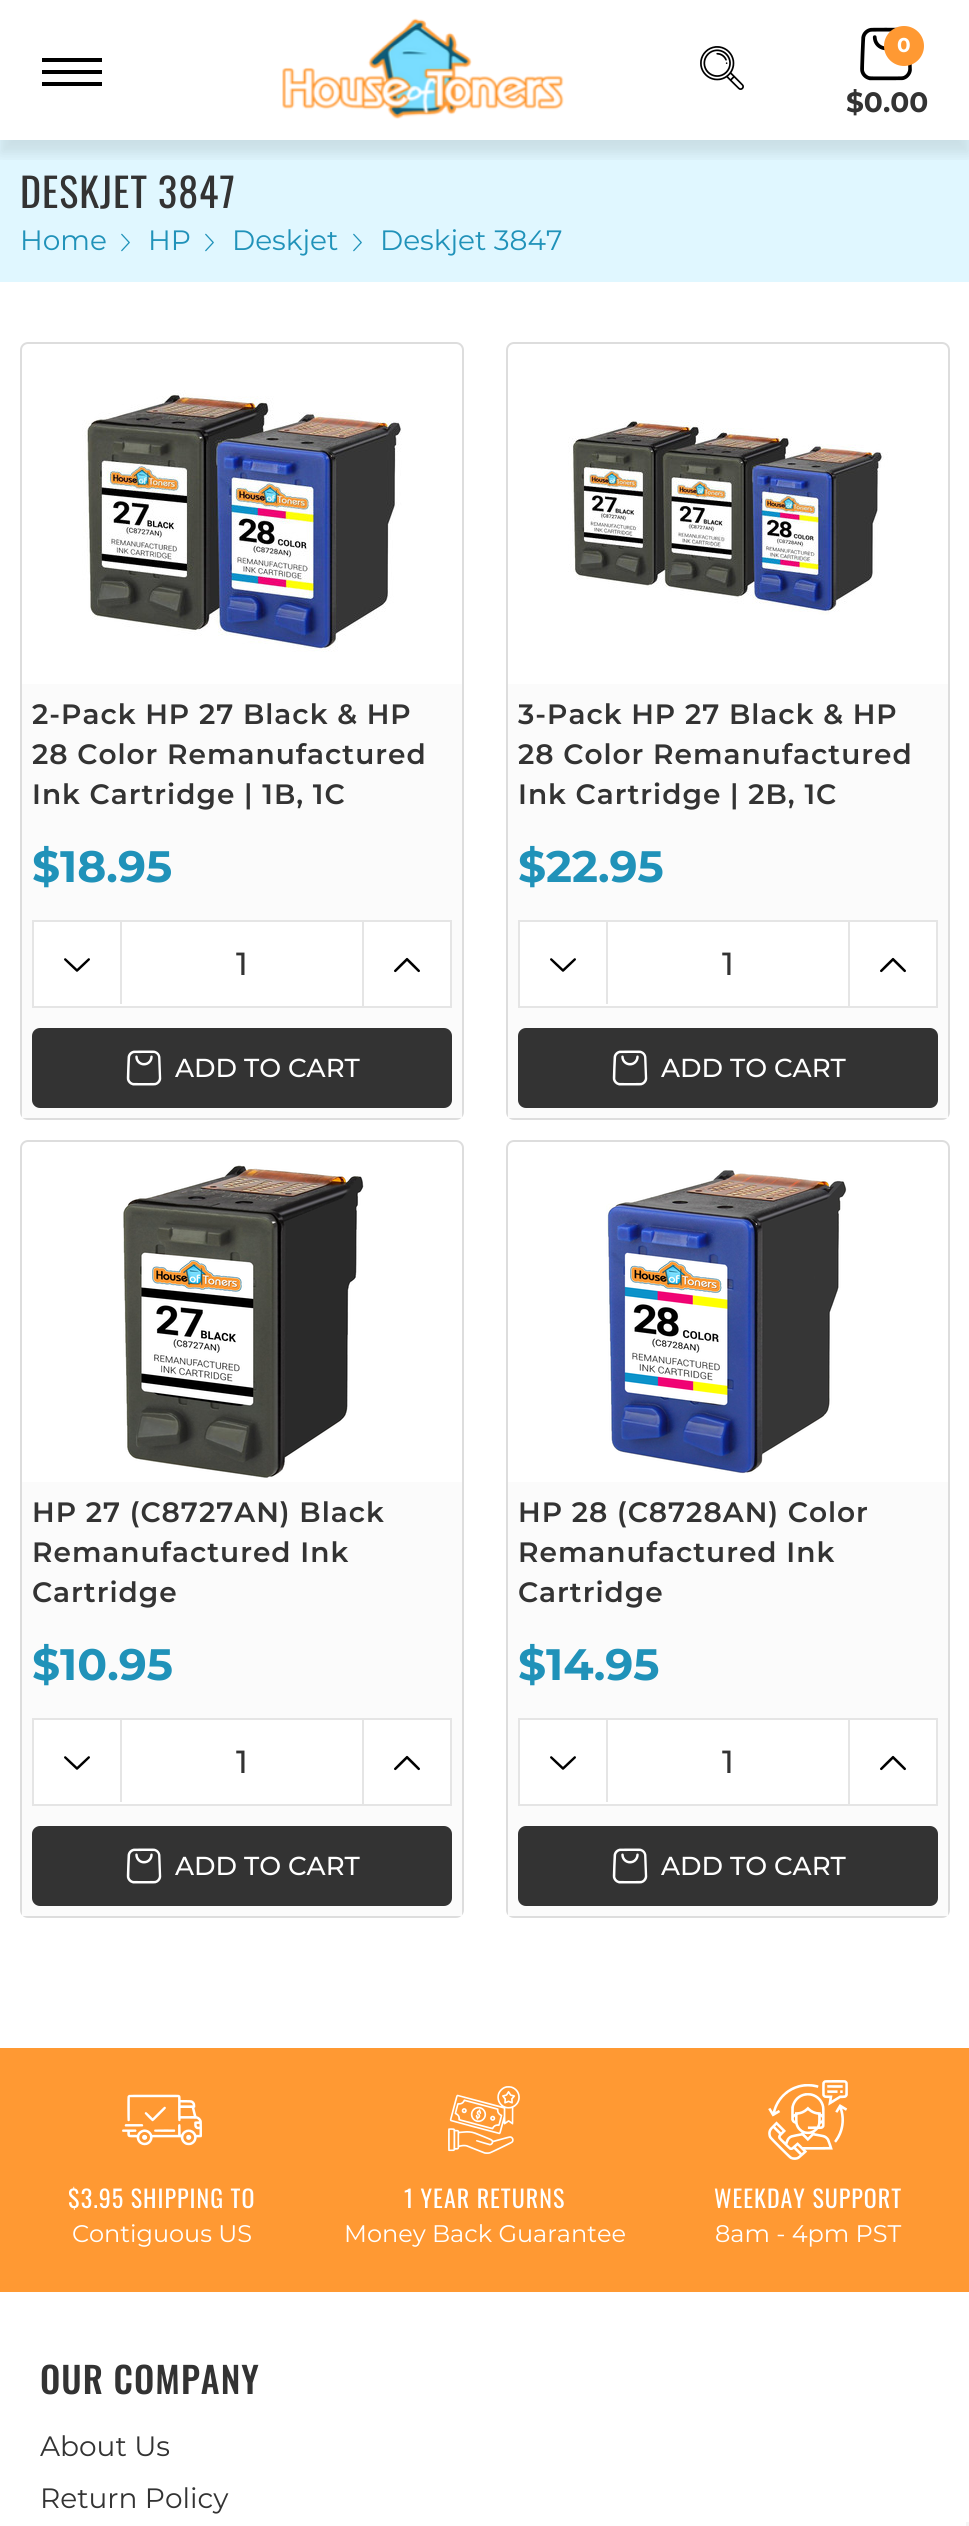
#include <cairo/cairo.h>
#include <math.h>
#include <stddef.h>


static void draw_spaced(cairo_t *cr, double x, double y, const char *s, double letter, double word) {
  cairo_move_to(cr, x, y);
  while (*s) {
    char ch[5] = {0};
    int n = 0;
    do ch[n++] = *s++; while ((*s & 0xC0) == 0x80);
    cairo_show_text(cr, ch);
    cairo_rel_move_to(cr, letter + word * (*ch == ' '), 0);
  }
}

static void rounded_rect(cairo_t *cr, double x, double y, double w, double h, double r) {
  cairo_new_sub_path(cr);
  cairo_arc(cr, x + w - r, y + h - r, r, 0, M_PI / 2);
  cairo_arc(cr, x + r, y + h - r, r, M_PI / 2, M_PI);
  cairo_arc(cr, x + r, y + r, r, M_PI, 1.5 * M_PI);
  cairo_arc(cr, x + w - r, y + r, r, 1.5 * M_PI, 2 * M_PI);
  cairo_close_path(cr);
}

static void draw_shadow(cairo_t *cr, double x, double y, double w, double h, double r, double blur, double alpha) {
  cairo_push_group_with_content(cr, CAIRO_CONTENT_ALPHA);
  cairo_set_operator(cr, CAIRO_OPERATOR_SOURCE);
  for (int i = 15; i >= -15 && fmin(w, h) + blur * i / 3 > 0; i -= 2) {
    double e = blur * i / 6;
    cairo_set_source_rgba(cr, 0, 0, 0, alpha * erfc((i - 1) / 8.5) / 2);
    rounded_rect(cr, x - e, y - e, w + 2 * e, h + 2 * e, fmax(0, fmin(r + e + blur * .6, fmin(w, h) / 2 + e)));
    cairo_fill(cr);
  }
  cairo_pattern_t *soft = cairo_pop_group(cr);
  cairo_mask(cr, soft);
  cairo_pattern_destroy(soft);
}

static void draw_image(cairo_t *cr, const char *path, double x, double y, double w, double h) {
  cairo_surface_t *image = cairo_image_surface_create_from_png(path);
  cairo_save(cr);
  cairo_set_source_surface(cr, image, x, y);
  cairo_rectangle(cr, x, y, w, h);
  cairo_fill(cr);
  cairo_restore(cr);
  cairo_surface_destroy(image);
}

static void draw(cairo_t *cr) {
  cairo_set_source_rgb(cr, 1, 1, 1);
  cairo_paint(cr);
  cairo_set_source_rgb(cr, 224 / 255.0, 247 / 255.0, 1);
  cairo_rectangle(cr, 0, 140, 969, 142);
  cairo_fill(cr);
  cairo_save(cr);
  cairo_rectangle(cr, 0, 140, 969, 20);
  cairo_clip(cr);
  cairo_set_source_rgb(cr, 0, 0, 0);
  draw_shadow(cr, 0, 14, 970, 140, 0, 7, 0.1);
  cairo_restore(cr);
  cairo_set_source_rgb(cr, 0, 0, 0);
  cairo_rectangle(cr, 42, 58, 60, 4);
  cairo_fill(cr);
  cairo_rectangle(cr, 42, 70, 60, 4);
  cairo_fill(cr);
  cairo_rectangle(cr, 42, 82, 60, 4);
  cairo_fill(cr);
  draw_image(cr, "images/1.png", 282, 18, 282, 101);
  draw_image(cr, "images/2.png", 700, 46, 44, 44);
  draw_image(cr, "images/3.png", 860, 27, 52, 54);
  cairo_set_source_rgb(cr, 1, 153 / 255.0, 51 / 255.0);
  cairo_arc(cr, 904, 46, 20, 0, 2 * M_PI);
  cairo_fill(cr);
  draw_image(cr, "images/4.png", 121, 233, 9, 19);
  draw_image(cr, "images/4.png", 205, 233, 9, 19);
  draw_image(cr, "images/4.png", 353, 233, 9, 19);
  rounded_rect(cr, 21, 343, 442, 776, 7);
  cairo_set_source_rgb(cr, 221 / 255.0, 221 / 255.0, 221 / 255.0);
  cairo_stroke(cr);
  draw_image(cr, "images/5.png", 82, 390, 320, 262);
  cairo_set_source_rgb(cr, 251 / 255.0, 251 / 255.0, 251 / 255.0);
  cairo_rectangle(cr, 22, 684, 440, 434);
  cairo_fill(cr);
  cairo_rectangle(cr, 33, 921, 418, 86);
  cairo_set_source_rgb(cr, 229 / 255.0, 229 / 255.0, 229 / 255.0);
  cairo_stroke(cr);
  cairo_set_source_rgb(cr, 1, 1, 1);
  cairo_rectangle(cr, 34, 922, 416, 84);
  cairo_fill(cr);
  cairo_set_source_rgb(cr, 229 / 255.0, 229 / 255.0, 229 / 255.0);
  cairo_rectangle(cr, 120, 922, 2, 82);
  cairo_fill(cr);
  draw_image(cr, "images/6.png", 64, 958, 26, 14);
  cairo_rectangle(cr, 362, 922, 2, 86);
  cairo_fill(cr);
  draw_image(cr, "images/7.png", 394, 957, 26, 16);
  cairo_set_source_rgb(cr, 51 / 255.0, 51 / 255.0, 51 / 255.0);
  rounded_rect(cr, 32, 1028, 420, 80, 8);
  cairo_fill(cr);
  draw_image(cr, "images/8.png", 126, 1050, 36, 36);
  rounded_rect(cr, 507, 343, 442, 776, 7);
  cairo_set_source_rgb(cr, 221 / 255.0, 221 / 255.0, 221 / 255.0);
  cairo_stroke(cr);
  draw_image(cr, "images/9.png", 568, 420, 320, 195);
  cairo_set_source_rgb(cr, 251 / 255.0, 251 / 255.0, 251 / 255.0);
  cairo_rectangle(cr, 508, 684, 440, 434);
  cairo_fill(cr);
  cairo_rectangle(cr, 519, 921, 418, 86);
  cairo_set_source_rgb(cr, 229 / 255.0, 229 / 255.0, 229 / 255.0);
  cairo_stroke(cr);
  cairo_set_source_rgb(cr, 1, 1, 1);
  cairo_rectangle(cr, 520, 922, 416, 84);
  cairo_fill(cr);
  cairo_set_source_rgb(cr, 229 / 255.0, 229 / 255.0, 229 / 255.0);
  cairo_rectangle(cr, 606, 922, 2, 82);
  cairo_fill(cr);
  draw_image(cr, "images/6.png", 550, 958, 26, 14);
  cairo_rectangle(cr, 848, 922, 2, 86);
  cairo_fill(cr);
  draw_image(cr, "images/7.png", 880, 957, 26, 16);
  cairo_set_source_rgb(cr, 51 / 255.0, 51 / 255.0, 51 / 255.0);
  rounded_rect(cr, 518, 1028, 420, 80, 8);
  cairo_fill(cr);
  draw_image(cr, "images/8.png", 612, 1050, 36, 36);
  rounded_rect(cr, 21, 1141, 442, 776, 7);
  cairo_set_source_rgb(cr, 221 / 255.0, 221 / 255.0, 221 / 255.0);
  cairo_stroke(cr);
  draw_image(cr, "images/10.png", 123, 1165, 241, 313);
  cairo_set_source_rgb(cr, 251 / 255.0, 251 / 255.0, 251 / 255.0);
  cairo_rectangle(cr, 22, 1482, 440, 434);
  cairo_fill(cr);
  cairo_rectangle(cr, 33, 1719, 418, 86);
  cairo_set_source_rgb(cr, 229 / 255.0, 229 / 255.0, 229 / 255.0);
  cairo_stroke(cr);
  cairo_set_source_rgb(cr, 1, 1, 1);
  cairo_rectangle(cr, 34, 1720, 416, 84);
  cairo_fill(cr);
  cairo_set_source_rgb(cr, 229 / 255.0, 229 / 255.0, 229 / 255.0);
  cairo_rectangle(cr, 120, 1720, 2, 82);
  cairo_fill(cr);
  draw_image(cr, "images/6.png", 64, 1756, 26, 14);
  cairo_rectangle(cr, 362, 1720, 2, 86);
  cairo_fill(cr);
  draw_image(cr, "images/7.png", 394, 1755, 26, 16);
  cairo_set_source_rgb(cr, 51 / 255.0, 51 / 255.0, 51 / 255.0);
  rounded_rect(cr, 32, 1826, 420, 80, 8);
  cairo_fill(cr);
  draw_image(cr, "images/8.png", 126, 1848, 36, 36);
  rounded_rect(cr, 507, 1141, 442, 776, 7);
  cairo_set_source_rgb(cr, 221 / 255.0, 221 / 255.0, 221 / 255.0);
  cairo_stroke(cr);
  draw_image(cr, "images/11.png", 606, 1170, 241, 304);
  cairo_set_source_rgb(cr, 251 / 255.0, 251 / 255.0, 251 / 255.0);
  cairo_rectangle(cr, 508, 1482, 440, 434);
  cairo_fill(cr);
  cairo_rectangle(cr, 519, 1719, 418, 86);
  cairo_set_source_rgb(cr, 229 / 255.0, 229 / 255.0, 229 / 255.0);
  cairo_stroke(cr);
  cairo_set_source_rgb(cr, 1, 1, 1);
  cairo_rectangle(cr, 520, 1720, 416, 84);
  cairo_fill(cr);
  cairo_set_source_rgb(cr, 229 / 255.0, 229 / 255.0, 229 / 255.0);
  cairo_rectangle(cr, 606, 1720, 2, 82);
  cairo_fill(cr);
  draw_image(cr, "images/6.png", 550, 1756, 26, 14);
  cairo_rectangle(cr, 848, 1720, 2, 86);
  cairo_fill(cr);
  draw_image(cr, "images/7.png", 880, 1755, 26, 16);
  cairo_set_source_rgb(cr, 51 / 255.0, 51 / 255.0, 51 / 255.0);
  rounded_rect(cr, 518, 1826, 420, 80, 8);
  cairo_fill(cr);
  draw_image(cr, "images/8.png", 612, 1848, 36, 36);
  cairo_set_source_rgb(cr, 1, 153 / 255.0, 51 / 255.0);
  cairo_rectangle(cr, 0, 2048, 969, 244);
  cairo_fill(cr);
  draw_image(cr, "images/12.png", 122, 2094, 80, 52);
  draw_image(cr, "images/13.png", 448, 2086, 72, 68);
  draw_image(cr, "images/14.png", 768, 2080, 80, 80);
  cairo_set_source_rgb(cr, 245 / 255.0, 245 / 255.0, 245 / 255.0);
  cairo_rectangle(cr, 966, 2522, 3, 4);
  cairo_fill(cr);
  cairo_select_font_face(cr, "Montserrat", CAIRO_FONT_SLANT_NORMAL, CAIRO_FONT_WEIGHT_BOLD);
  cairo_set_font_size(cr, 20);
  cairo_set_source_rgb(cr, 1, 1, 1);
  cairo_move_to(cr, 897, 52);
  cairo_show_text(cr, "0");
  cairo_set_font_size(cr, 28);
  cairo_set_source_rgb(cr, 51 / 255.0, 51 / 255.0, 51 / 255.0);
  cairo_move_to(cr, 846, 112);
  cairo_show_text(cr, "$0.00");
  cairo_select_font_face(cr, "Oswald", CAIRO_FONT_SLANT_NORMAL, CAIRO_FONT_WEIGHT_NORMAL);
  cairo_set_font_size(cr, 40);
  draw_spaced(cr, 20, 208, "DESKJET 3847", 1, 0);
  cairo_select_font_face(cr, "Montserrat", CAIRO_FONT_SLANT_NORMAL, CAIRO_FONT_WEIGHT_NORMAL);
  cairo_set_font_size(cr, 28);
  cairo_set_source_rgb(cr, 32 / 255.0, 146 / 255.0, 185 / 255.0);
  cairo_move_to(cr, 20, 250);
  cairo_show_text(cr, "Home");
  cairo_move_to(cr, 148, 250);
  cairo_show_text(cr, "HP");
  cairo_move_to(cr, 232, 250);
  cairo_show_text(cr, "Deskjet");
  cairo_move_to(cr, 380, 250);
  cairo_show_text(cr, "Deskjet 3847");
  cairo_select_font_face(cr, "Montserrat SemiBold", CAIRO_FONT_SLANT_NORMAL, CAIRO_FONT_WEIGHT_NORMAL);
  cairo_set_source_rgb(cr, 51 / 255.0, 51 / 255.0, 51 / 255.0);
  draw_spaced(cr, 32, 724, "2-Pack HP 27 Black & HP", 1, 0);
  draw_spaced(cr, 32, 764, "28 Color Remanufactured", 1, 0);
  draw_spaced(cr, 32, 804, "Ink Cartridge | 1B, 1C", 1, 0);
  cairo_select_font_face(cr, "Montserrat", CAIRO_FONT_SLANT_NORMAL, CAIRO_FONT_WEIGHT_BOLD);
  cairo_set_font_size(cr, 44);
  cairo_set_source_rgb(cr, 32 / 255.0, 146 / 255.0, 185 / 255.0);
  cairo_move_to(cr, 32, 882);
  cairo_show_text(cr, "$18.95");
  cairo_select_font_face(cr, "Montserrat Medium", CAIRO_FONT_SLANT_NORMAL, CAIRO_FONT_WEIGHT_NORMAL);
  cairo_set_font_size(cr, 32);
  cairo_set_source_rgb(cr, 51 / 255.0, 51 / 255.0, 51 / 255.0);
  cairo_move_to(cr, 236, 975);
  cairo_show_text(cr, "1");
  cairo_set_font_size(cr, 26);
  cairo_set_source_rgb(cr, 1, 1, 1);
  cairo_move_to(cr, 175, 1077);
  cairo_show_text(cr, "ADD TO CART");
  cairo_select_font_face(cr, "Montserrat SemiBold", CAIRO_FONT_SLANT_NORMAL, CAIRO_FONT_WEIGHT_NORMAL);
  cairo_set_font_size(cr, 28);
  cairo_set_source_rgb(cr, 51 / 255.0, 51 / 255.0, 51 / 255.0);
  draw_spaced(cr, 518, 724, "3-Pack HP 27 Black & HP", 1, 0);
  draw_spaced(cr, 518, 764, "28 Color Remanufactured", 1, 0);
  draw_spaced(cr, 518, 804, "Ink Cartridge | 2B, 1C", 1, 0);
  cairo_select_font_face(cr, "Montserrat", CAIRO_FONT_SLANT_NORMAL, CAIRO_FONT_WEIGHT_BOLD);
  cairo_set_font_size(cr, 44);
  cairo_set_source_rgb(cr, 32 / 255.0, 146 / 255.0, 185 / 255.0);
  cairo_move_to(cr, 518, 882);
  cairo_show_text(cr, "$22.95");
  cairo_select_font_face(cr, "Montserrat Medium", CAIRO_FONT_SLANT_NORMAL, CAIRO_FONT_WEIGHT_NORMAL);
  cairo_set_font_size(cr, 32);
  cairo_set_source_rgb(cr, 51 / 255.0, 51 / 255.0, 51 / 255.0);
  cairo_move_to(cr, 722, 975);
  cairo_show_text(cr, "1");
  cairo_set_font_size(cr, 26);
  cairo_set_source_rgb(cr, 1, 1, 1);
  cairo_move_to(cr, 661, 1077);
  cairo_show_text(cr, "ADD TO CART");
  cairo_select_font_face(cr, "Montserrat SemiBold", CAIRO_FONT_SLANT_NORMAL, CAIRO_FONT_WEIGHT_NORMAL);
  cairo_set_font_size(cr, 28);
  cairo_set_source_rgb(cr, 51 / 255.0, 51 / 255.0, 51 / 255.0);
  draw_spaced(cr, 32, 1522, "HP 27 (C8727AN) Black", 1, 0);
  draw_spaced(cr, 32, 1562, "Remanufactured Ink", 1, 0);
  draw_spaced(cr, 32, 1602, "Cartridge", 1, 0);
  cairo_select_font_face(cr, "Montserrat", CAIRO_FONT_SLANT_NORMAL, CAIRO_FONT_WEIGHT_BOLD);
  cairo_set_font_size(cr, 44);
  cairo_set_source_rgb(cr, 32 / 255.0, 146 / 255.0, 185 / 255.0);
  cairo_move_to(cr, 32, 1680);
  cairo_show_text(cr, "$10.95");
  cairo_select_font_face(cr, "Montserrat Medium", CAIRO_FONT_SLANT_NORMAL, CAIRO_FONT_WEIGHT_NORMAL);
  cairo_set_font_size(cr, 32);
  cairo_set_source_rgb(cr, 51 / 255.0, 51 / 255.0, 51 / 255.0);
  cairo_move_to(cr, 236, 1773);
  cairo_show_text(cr, "1");
  cairo_set_font_size(cr, 26);
  cairo_set_source_rgb(cr, 1, 1, 1);
  cairo_move_to(cr, 175, 1875);
  cairo_show_text(cr, "ADD TO CART");
  cairo_select_font_face(cr, "Montserrat SemiBold", CAIRO_FONT_SLANT_NORMAL, CAIRO_FONT_WEIGHT_NORMAL);
  cairo_set_font_size(cr, 28);
  cairo_set_source_rgb(cr, 51 / 255.0, 51 / 255.0, 51 / 255.0);
  draw_spaced(cr, 518, 1522, "HP 28 (C8728AN) Color", 1, 0);
  draw_spaced(cr, 518, 1562, "Remanufactured Ink", 1, 0);
  draw_spaced(cr, 518, 1602, "Cartridge", 1, 0);
  cairo_select_font_face(cr, "Montserrat", CAIRO_FONT_SLANT_NORMAL, CAIRO_FONT_WEIGHT_BOLD);
  cairo_set_font_size(cr, 44);
  cairo_set_source_rgb(cr, 32 / 255.0, 146 / 255.0, 185 / 255.0);
  cairo_move_to(cr, 518, 1680);
  cairo_show_text(cr, "$14.95");
  cairo_select_font_face(cr, "Montserrat Medium", CAIRO_FONT_SLANT_NORMAL, CAIRO_FONT_WEIGHT_NORMAL);
  cairo_set_font_size(cr, 32);
  cairo_set_source_rgb(cr, 51 / 255.0, 51 / 255.0, 51 / 255.0);
  cairo_move_to(cr, 722, 1773);
  cairo_show_text(cr, "1");
  cairo_set_font_size(cr, 26);
  cairo_set_source_rgb(cr, 1, 1, 1);
  cairo_move_to(cr, 661, 1875);
  cairo_show_text(cr, "ADD TO CART");
  cairo_select_font_face(cr, "Oswald", CAIRO_FONT_SLANT_NORMAL, CAIRO_FONT_WEIGHT_NORMAL);
  cairo_set_font_size(cr, 24);
  draw_spaced(cr, 68, 2208, "$3.95 SHIPPING TO", 1, 0);
  cairo_select_font_face(cr, "Montserrat", CAIRO_FONT_SLANT_NORMAL, CAIRO_FONT_WEIGHT_NORMAL);
  cairo_move_to(cr, 72, 2242);
  cairo_show_text(cr, "Contiguous US");
  cairo_select_font_face(cr, "Oswald", CAIRO_FONT_SLANT_NORMAL, CAIRO_FONT_WEIGHT_NORMAL);
  draw_spaced(cr, 404, 2208, "1 YEAR RETURNS", 1, 0);
  cairo_select_font_face(cr, "Montserrat", CAIRO_FONT_SLANT_NORMAL, CAIRO_FONT_WEIGHT_NORMAL);
  cairo_move_to(cr, 344, 2242);
  cairo_show_text(cr, "Money Back Guarantee");
  cairo_select_font_face(cr, "Oswald", CAIRO_FONT_SLANT_NORMAL, CAIRO_FONT_WEIGHT_NORMAL);
  draw_spaced(cr, 714, 2208, "WEEKDAY SUPPORT", 1, 0);
  cairo_select_font_face(cr, "Montserrat", CAIRO_FONT_SLANT_NORMAL, CAIRO_FONT_WEIGHT_NORMAL);
  cairo_move_to(cr, 715, 2242);
  cairo_show_text(cr, "8am - 4pm PST");
  cairo_select_font_face(cr, "Oswald Medium", CAIRO_FONT_SLANT_NORMAL, CAIRO_FONT_WEIGHT_NORMAL);
  cairo_set_font_size(cr, 36);
  cairo_set_source_rgb(cr, 51 / 255.0, 51 / 255.0, 51 / 255.0);
  draw_spaced(cr, 40, 2394, "OUR COMPANY", 1, 0);
  cairo_select_font_face(cr, "Montserrat", CAIRO_FONT_SLANT_NORMAL, CAIRO_FONT_WEIGHT_NORMAL);
  cairo_set_font_size(cr, 28);
  cairo_move_to(cr, 40, 2456);
  cairo_show_text(cr, "About Us");
  cairo_move_to(cr, 40, 2508);
  cairo_show_text(cr, "Return Policy");
}

int main(void) {
  cairo_surface_t *surface = cairo_image_surface_create(CAIRO_FORMAT_RGB24, 969, 2526);
  cairo_t *cr = cairo_create(surface);
  cairo_font_options_t *options = cairo_font_options_create();
  cairo_font_options_set_hint_metrics(options, CAIRO_HINT_METRICS_OFF);
  cairo_font_options_set_hint_style(options, CAIRO_HINT_STYLE_NONE);
  cairo_set_font_options(cr, options);
  cairo_set_miter_limit(cr, 4);
  draw(cr);
  cairo_surface_write_to_png(surface, "out.png");
  cairo_font_options_destroy(options);
  cairo_destroy(cr);
  cairo_surface_destroy(surface);
  return 0;
}
